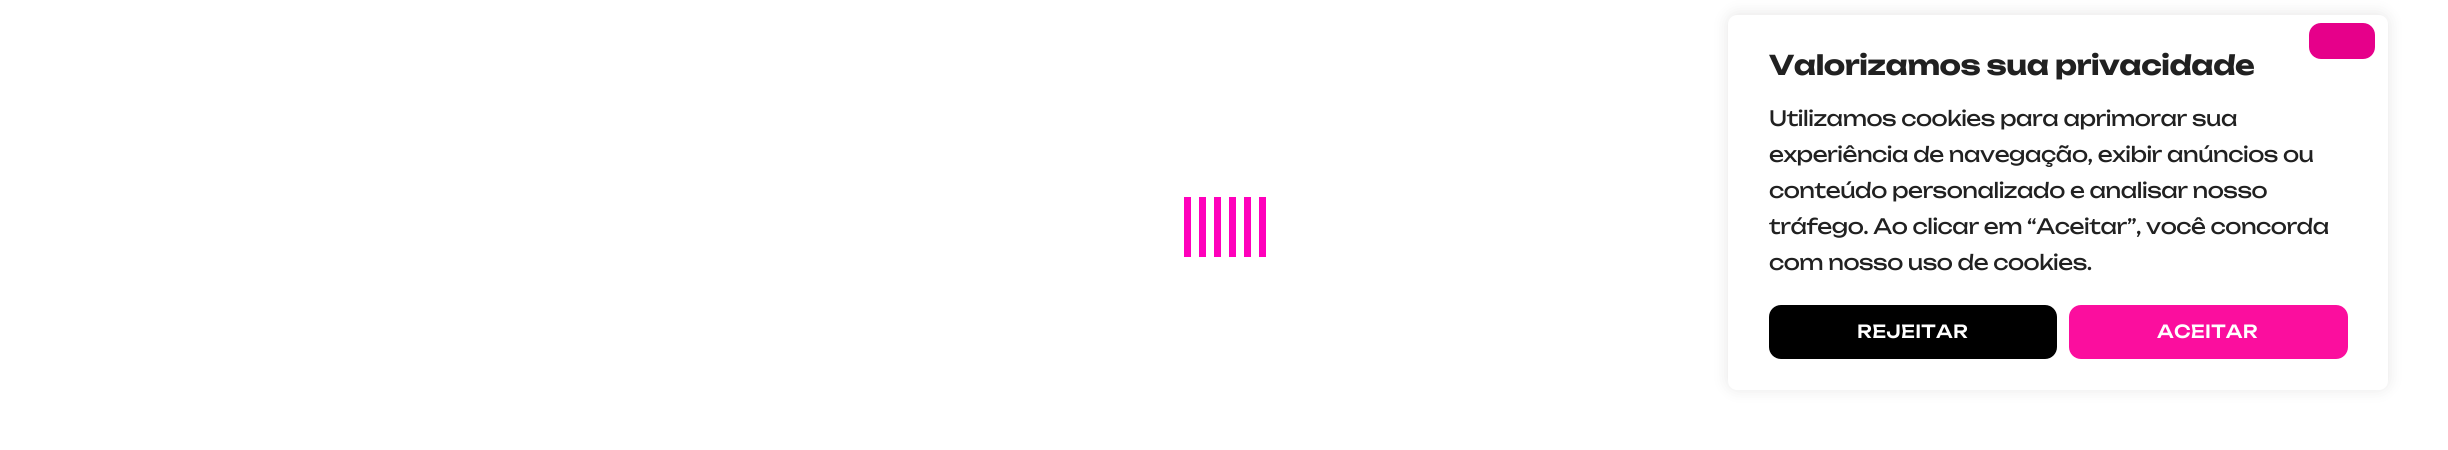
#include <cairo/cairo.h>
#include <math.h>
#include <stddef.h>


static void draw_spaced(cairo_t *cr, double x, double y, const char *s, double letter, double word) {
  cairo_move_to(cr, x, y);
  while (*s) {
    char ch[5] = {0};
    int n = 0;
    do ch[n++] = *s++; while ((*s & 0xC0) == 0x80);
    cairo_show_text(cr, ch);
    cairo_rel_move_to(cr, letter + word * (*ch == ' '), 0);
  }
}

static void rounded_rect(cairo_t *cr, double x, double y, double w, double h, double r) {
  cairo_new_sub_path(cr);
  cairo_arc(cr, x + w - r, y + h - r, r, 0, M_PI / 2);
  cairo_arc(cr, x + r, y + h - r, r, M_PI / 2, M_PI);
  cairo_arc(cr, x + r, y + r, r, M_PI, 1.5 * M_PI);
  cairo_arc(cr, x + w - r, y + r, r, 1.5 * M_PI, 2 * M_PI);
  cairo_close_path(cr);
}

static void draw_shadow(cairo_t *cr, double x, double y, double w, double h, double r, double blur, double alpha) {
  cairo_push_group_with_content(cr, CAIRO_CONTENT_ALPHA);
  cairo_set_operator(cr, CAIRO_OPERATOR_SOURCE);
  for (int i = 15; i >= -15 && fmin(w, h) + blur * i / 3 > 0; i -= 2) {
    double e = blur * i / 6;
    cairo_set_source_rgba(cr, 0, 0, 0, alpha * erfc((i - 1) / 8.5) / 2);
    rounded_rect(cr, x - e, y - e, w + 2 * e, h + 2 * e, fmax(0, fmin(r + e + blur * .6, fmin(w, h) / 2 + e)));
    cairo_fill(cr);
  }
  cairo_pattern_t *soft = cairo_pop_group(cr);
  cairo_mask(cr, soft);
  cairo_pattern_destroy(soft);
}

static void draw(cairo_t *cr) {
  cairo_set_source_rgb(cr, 1, 1, 1);
  cairo_paint(cr);
  cairo_set_source_rgb(cr, 1, 0, 187 / 255.0);
  cairo_rectangle(cr, 1259, 197, 7, 60);
  cairo_fill(cr);
  cairo_rectangle(cr, 1244, 197, 7, 60);
  cairo_fill(cr);
  cairo_rectangle(cr, 1229, 197, 7, 60);
  cairo_fill(cr);
  cairo_rectangle(cr, 1214, 197, 7, 60);
  cairo_fill(cr);
  cairo_rectangle(cr, 1199, 197, 7, 60);
  cairo_fill(cr);
  cairo_rectangle(cr, 1184, 197, 7, 60);
  cairo_fill(cr);
  cairo_set_source_rgb(cr, 172 / 255.0, 171 / 255.0, 171 / 255.0);
  draw_shadow(cr, 1728, 14, 660, 375, 9, 7.5, 0.3);
  cairo_set_source_rgb(cr, 1, 1, 1);
  rounded_rect(cr, 1728, 15, 660, 375, 9);
  cairo_fill(cr);
  cairo_set_source_rgb(cr, 230 / 255.0, 0, 138 / 255.0);
  rounded_rect(cr, 2309, 23, 66, 36, 12);
  cairo_fill(cr);
  cairo_set_source_rgb(cr, 0, 0, 0);
  rounded_rect(cr, 1769, 305, 288, 54, 12);
  cairo_fill(cr);
  cairo_set_source_rgb(cr, 251 / 255.0, 14 / 255.0, 158 / 255.0);
  rounded_rect(cr, 2069, 305, 279, 54, 12);
  cairo_fill(cr);
  cairo_select_font_face(cr, "Unbounded", CAIRO_FONT_SLANT_NORMAL, CAIRO_FONT_WEIGHT_BOLD);
  cairo_set_font_size(cr, 27);
  cairo_set_source_rgb(cr, 33 / 255.0, 33 / 255.0, 33 / 255.0);
  draw_spaced(cr, 1769, 75, "Valorizamos sua privacidade", -0.45, 0);
  cairo_select_font_face(cr, "Unbounded", CAIRO_FONT_SLANT_NORMAL, CAIRO_FONT_WEIGHT_NORMAL);
  cairo_set_font_size(cr, 21);
  draw_spaced(cr, 1769, 126, "Utilizamos cookies para aprimorar sua", -0.45, 0);
  draw_spaced(cr, 1769, 162, "experiência de navegação, exibir anúncios ou", -0.45, 0);
  draw_spaced(cr, 1769, 198, "conteúdo personalizado e analisar nosso", -0.45, 0);
  draw_spaced(cr, 1769, 234, "tráfego. Ao clicar em “Aceitar”, você concorda", -0.45, 0);
  draw_spaced(cr, 1769, 270, "com nosso uso de cookies.", -0.45, 0);
  cairo_select_font_face(cr, "Unbounded Medium", CAIRO_FONT_SLANT_NORMAL, CAIRO_FONT_WEIGHT_NORMAL);
  cairo_set_font_size(cr, 18);
  cairo_set_source_rgb(cr, 1, 1, 1);
  draw_spaced(cr, 1857, 338, "REJEITAR", 0.25, 0);
  draw_spaced(cr, 2157, 338, "ACEITAR", 0.25, 0);
}

int main(void) {
  cairo_surface_t *surface = cairo_image_surface_create(CAIRO_FORMAT_RGB24, 2448, 450);
  cairo_t *cr = cairo_create(surface);
  cairo_font_options_t *options = cairo_font_options_create();
  cairo_font_options_set_hint_metrics(options, CAIRO_HINT_METRICS_OFF);
  cairo_font_options_set_hint_style(options, CAIRO_HINT_STYLE_NONE);
  cairo_set_font_options(cr, options);
  cairo_set_miter_limit(cr, 4);
  draw(cr);
  cairo_surface_write_to_png(surface, "out.png");
  cairo_font_options_destroy(options);
  cairo_destroy(cr);
  cairo_surface_destroy(surface);
  return 0;
}
